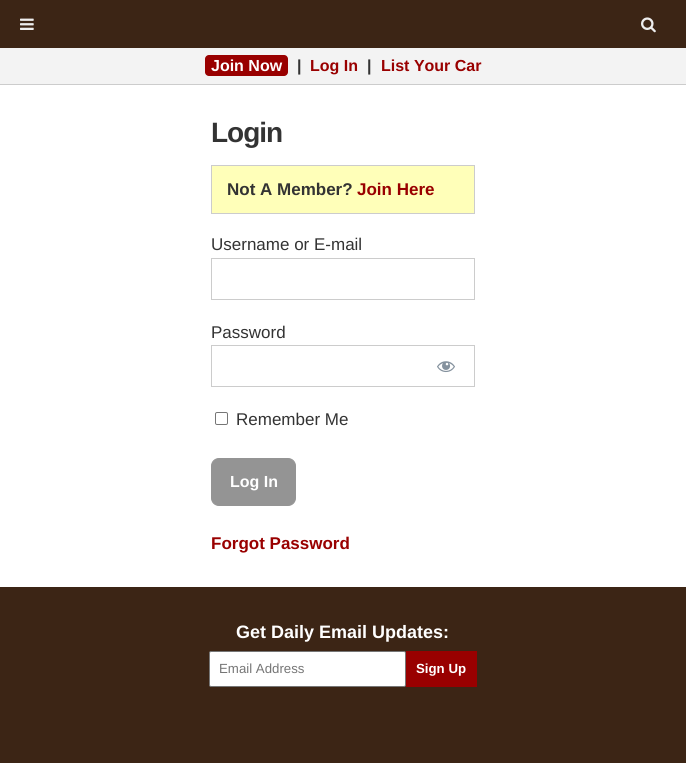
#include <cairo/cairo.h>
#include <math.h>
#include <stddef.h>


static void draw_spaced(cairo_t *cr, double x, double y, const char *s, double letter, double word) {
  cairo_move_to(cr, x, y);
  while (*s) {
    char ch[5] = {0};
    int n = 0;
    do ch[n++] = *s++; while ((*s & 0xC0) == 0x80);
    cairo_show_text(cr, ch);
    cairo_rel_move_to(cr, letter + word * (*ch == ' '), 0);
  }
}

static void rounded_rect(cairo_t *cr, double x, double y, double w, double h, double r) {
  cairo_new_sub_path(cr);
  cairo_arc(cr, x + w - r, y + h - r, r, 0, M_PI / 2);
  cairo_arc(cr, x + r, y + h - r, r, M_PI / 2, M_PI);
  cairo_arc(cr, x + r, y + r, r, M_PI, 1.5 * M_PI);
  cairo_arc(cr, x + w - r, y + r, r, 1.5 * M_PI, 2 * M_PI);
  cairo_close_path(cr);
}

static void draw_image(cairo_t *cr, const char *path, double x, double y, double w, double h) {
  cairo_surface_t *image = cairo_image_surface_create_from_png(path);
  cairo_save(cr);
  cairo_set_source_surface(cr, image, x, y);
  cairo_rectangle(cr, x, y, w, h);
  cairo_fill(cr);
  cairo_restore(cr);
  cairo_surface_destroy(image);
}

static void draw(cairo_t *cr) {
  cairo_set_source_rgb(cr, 1, 1, 1);
  cairo_paint(cr);
  cairo_set_source_rgb(cr, 60 / 255.0, 37 / 255.0, 21 / 255.0);
  cairo_rectangle(cr, 0, 0, 686, 48);
  cairo_fill(cr);
  draw_image(cr, "images/1.png", 20, 18, 14, 12);
  draw_image(cr, "images/2.png", 641, 17, 15, 16);
  cairo_set_source_rgb(cr, 243 / 255.0, 243 / 255.0, 243 / 255.0);
  cairo_rectangle(cr, 0, 48, 686, 36);
  cairo_fill(cr);
  cairo_set_source_rgb(cr, 204 / 255.0, 204 / 255.0, 204 / 255.0);
  cairo_rectangle(cr, 0, 84, 686, 1);
  cairo_fill(cr);
  cairo_set_source_rgb(cr, 153 / 255.0, 0, 0);
  rounded_rect(cr, 205, 55, 83, 21, 4);
  cairo_fill(cr);
  cairo_set_source_rgb(cr, 1, 1, 185 / 255.0);
  cairo_rectangle(cr, 211.5, 165.5, 263, 48);
  cairo_fill_preserve(cr);
  cairo_set_source_rgb(cr, 204 / 255.0, 204 / 255.0, 204 / 255.0);
  cairo_set_line_width(cr, 1);
  cairo_stroke(cr);
  cairo_rectangle(cr, 211.5, 258.5, 263, 41);
  cairo_stroke(cr);
  cairo_rectangle(cr, 211.5, 345.5, 263, 41);
  cairo_stroke(cr);
  draw_image(cr, "images/3.png", 437, 361, 18, 12);
  rounded_rect(cr, 215.5, 412.5, 12, 12, 1.5);
  cairo_set_source_rgb(cr, 118 / 255.0, 118 / 255.0, 118 / 255.0);
  cairo_stroke(cr);
  cairo_set_source_rgb(cr, 148 / 255.0, 148 / 255.0, 148 / 255.0);
  rounded_rect(cr, 211.5, 458.5, 84, 47, 7.5);
  cairo_fill_preserve(cr);
  cairo_stroke(cr);
  cairo_set_source_rgb(cr, 60 / 255.0, 37 / 255.0, 21 / 255.0);
  cairo_rectangle(cr, 0, 587, 686, 176);
  cairo_fill(cr);
  cairo_set_source_rgb(cr, 1, 1, 1);
  rounded_rect(cr, 209.5, 651.5, 196, 35, 1.5);
  cairo_fill_preserve(cr);
  cairo_set_source_rgb(cr, 118 / 255.0, 118 / 255.0, 118 / 255.0);
  cairo_stroke(cr);
  cairo_set_source_rgb(cr, 153 / 255.0, 0, 0);
  cairo_rectangle(cr, 406, 651, 71, 36);
  cairo_fill(cr);
  cairo_select_font_face(cr, "Liberation Sans", CAIRO_FONT_SLANT_NORMAL, CAIRO_FONT_WEIGHT_BOLD);
  cairo_set_font_size(cr, 16);
  cairo_set_source_rgb(cr, 1, 1, 1);
  cairo_move_to(cr, 211, 71);
  cairo_show_text(cr, "Join Now");
  cairo_set_source_rgb(cr, 51 / 255.0, 51 / 255.0, 51 / 255.0);
  cairo_move_to(cr, 297, 71);
  cairo_show_text(cr, "|");
  cairo_set_source_rgb(cr, 153 / 255.0, 0, 0);
  cairo_move_to(cr, 310, 71);
  cairo_show_text(cr, "Log In");
  cairo_set_source_rgb(cr, 51 / 255.0, 51 / 255.0, 51 / 255.0);
  cairo_move_to(cr, 367, 71);
  cairo_show_text(cr, "|");
  cairo_set_source_rgb(cr, 153 / 255.0, 0, 0);
  cairo_move_to(cr, 381, 71);
  cairo_show_text(cr, "List Your Car");
  cairo_set_font_size(cr, 28);
  cairo_set_source_rgb(cr, 51 / 255.0, 51 / 255.0, 51 / 255.0);
  draw_spaced(cr, 211, 142, "Login", -1, 0);
  cairo_set_font_size(cr, 17);
  cairo_move_to(cr, 227, 195);
  cairo_show_text(cr, "Not A Member?");
  cairo_set_source_rgb(cr, 153 / 255.0, 0, 0);
  cairo_move_to(cr, 357, 195);
  cairo_show_text(cr, "Join Here");
  cairo_select_font_face(cr, "Liberation Sans", CAIRO_FONT_SLANT_NORMAL, CAIRO_FONT_WEIGHT_NORMAL);
  cairo_set_source_rgb(cr, 51 / 255.0, 51 / 255.0, 51 / 255.0);
  cairo_move_to(cr, 211, 250);
  cairo_show_text(cr, "Username or E-mail");
  cairo_move_to(cr, 211, 338);
  cairo_show_text(cr, "Password");
  cairo_move_to(cr, 236, 425);
  cairo_show_text(cr, "Remember Me");
  cairo_select_font_face(cr, "Liberation Sans", CAIRO_FONT_SLANT_NORMAL, CAIRO_FONT_WEIGHT_BOLD);
  cairo_set_font_size(cr, 16);
  cairo_set_source_rgb(cr, 1, 1, 1);
  cairo_move_to(cr, 230, 487);
  cairo_show_text(cr, "Log In");
  cairo_set_font_size(cr, 17);
  cairo_set_source_rgb(cr, 153 / 255.0, 0, 0);
  cairo_move_to(cr, 211, 549);
  cairo_show_text(cr, "Forgot Password");
  cairo_set_font_size(cr, 18);
  cairo_set_source_rgb(cr, 1, 1, 1);
  cairo_move_to(cr, 236, 638);
  cairo_show_text(cr, "Get Daily Email Updates:");
  cairo_select_font_face(cr, "Liberation Sans", CAIRO_FONT_SLANT_NORMAL, CAIRO_FONT_WEIGHT_NORMAL);
  cairo_set_font_size(cr, 13.25);
  cairo_set_source_rgb(cr, 117 / 255.0, 117 / 255.0, 117 / 255.0);
  cairo_move_to(cr, 219, 673);
  cairo_show_text(cr, "Email Address");
  cairo_select_font_face(cr, "Liberation Sans", CAIRO_FONT_SLANT_NORMAL, CAIRO_FONT_WEIGHT_BOLD);
  cairo_set_source_rgb(cr, 1, 1, 1);
  cairo_move_to(cr, 416, 673);
  cairo_show_text(cr, "Sign Up");
}

int main(void) {
  cairo_surface_t *surface = cairo_image_surface_create(CAIRO_FORMAT_RGB24, 686, 763);
  cairo_t *cr = cairo_create(surface);
  cairo_font_options_t *options = cairo_font_options_create();
  cairo_font_options_set_hint_metrics(options, CAIRO_HINT_METRICS_OFF);
  cairo_font_options_set_hint_style(options, CAIRO_HINT_STYLE_NONE);
  cairo_set_font_options(cr, options);
  cairo_set_miter_limit(cr, 4);
  draw(cr);
  cairo_surface_write_to_png(surface, "out.png");
  cairo_font_options_destroy(options);
  cairo_destroy(cr);
  cairo_surface_destroy(surface);
  return 0;
}
